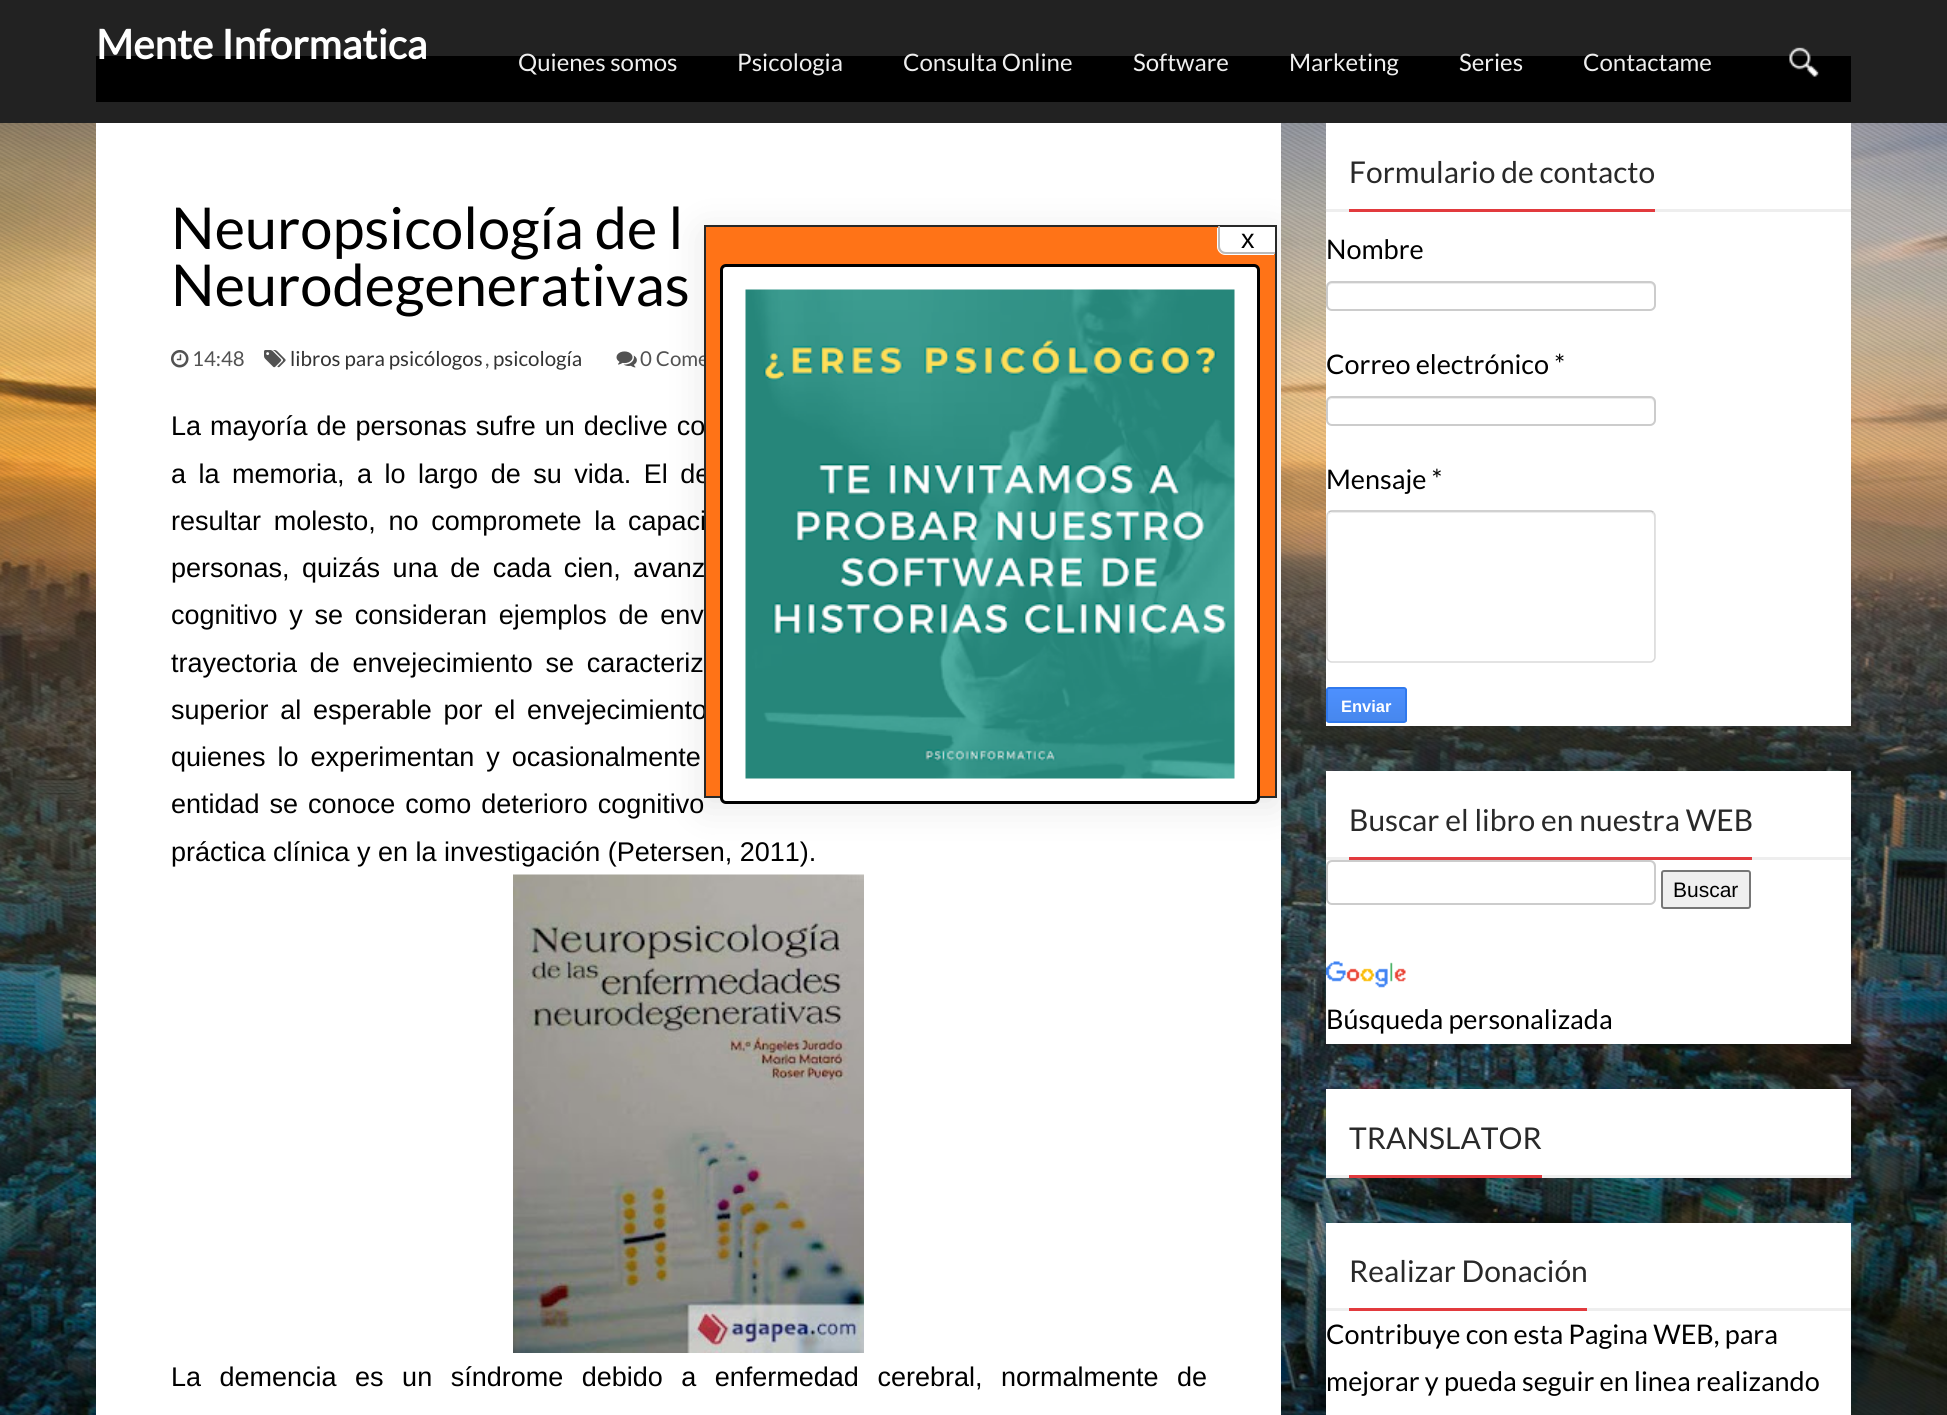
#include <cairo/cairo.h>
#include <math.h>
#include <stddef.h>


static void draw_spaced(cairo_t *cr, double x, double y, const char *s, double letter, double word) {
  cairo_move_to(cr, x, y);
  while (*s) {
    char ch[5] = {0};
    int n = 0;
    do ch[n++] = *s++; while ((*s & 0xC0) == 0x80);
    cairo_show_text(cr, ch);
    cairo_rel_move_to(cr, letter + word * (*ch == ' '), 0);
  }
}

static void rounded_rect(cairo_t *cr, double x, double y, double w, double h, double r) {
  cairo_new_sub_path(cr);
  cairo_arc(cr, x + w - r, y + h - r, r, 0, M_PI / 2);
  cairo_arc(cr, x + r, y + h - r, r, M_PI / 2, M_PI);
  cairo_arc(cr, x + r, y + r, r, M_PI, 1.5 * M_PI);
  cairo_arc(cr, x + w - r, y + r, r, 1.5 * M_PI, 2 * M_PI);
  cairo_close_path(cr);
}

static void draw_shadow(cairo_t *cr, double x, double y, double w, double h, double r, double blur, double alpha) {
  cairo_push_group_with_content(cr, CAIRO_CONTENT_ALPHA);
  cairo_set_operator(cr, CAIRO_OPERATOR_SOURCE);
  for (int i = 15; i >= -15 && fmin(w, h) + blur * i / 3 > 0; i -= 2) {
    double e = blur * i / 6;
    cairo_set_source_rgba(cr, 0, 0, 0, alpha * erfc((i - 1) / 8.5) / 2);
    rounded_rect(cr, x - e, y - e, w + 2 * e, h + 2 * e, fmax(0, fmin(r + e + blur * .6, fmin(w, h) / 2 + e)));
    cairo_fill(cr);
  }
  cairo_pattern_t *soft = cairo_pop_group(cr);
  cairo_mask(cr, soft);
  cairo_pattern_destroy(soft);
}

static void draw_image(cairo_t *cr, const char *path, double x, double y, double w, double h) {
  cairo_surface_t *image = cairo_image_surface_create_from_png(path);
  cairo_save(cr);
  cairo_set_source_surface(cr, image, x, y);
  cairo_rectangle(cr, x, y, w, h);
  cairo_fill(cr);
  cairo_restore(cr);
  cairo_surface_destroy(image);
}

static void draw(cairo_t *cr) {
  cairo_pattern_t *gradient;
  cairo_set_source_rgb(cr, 1, 1, 1);
  cairo_paint(cr);
  cairo_set_source_rgb(cr, 34 / 255.0, 34 / 255.0, 34 / 255.0);
  cairo_rectangle(cr, 0, 0, 1947, 123);
  cairo_fill(cr);
  cairo_set_source_rgb(cr, 0, 0, 0);
  cairo_rectangle(cr, 96, 56, 1755, 46);
  cairo_fill(cr);
  draw_image(cr, "images/1.png", 1789, 47, 30, 30);
  draw_image(cr, "images/8.png", 0, 123, 1947, 1292);
  draw_image(cr, "images/9.png", 0, 123, 1947, 1292);
  cairo_set_source_rgb(cr, 1, 1, 1);
  cairo_rectangle(cr, 96, 123, 1185, 1292);
  cairo_fill(cr);
  draw_image(cr, "images/2.png", 171, 350, 18, 18);
  draw_image(cr, "images/3.png", 264, 350, 22, 18);
  draw_image(cr, "images/4.png", 616, 351, 21, 17);
  draw_image(cr, "images/5.png", 513, 874, 351, 479);
  cairo_rectangle(cr, 1326, 123, 525, 603);
  cairo_fill(cr);
  cairo_set_source_rgb(cr, 238 / 255.0, 238 / 255.0, 238 / 255.0);
  cairo_rectangle(cr, 1326, 209, 525, 3);
  cairo_fill(cr);
  cairo_set_source_rgb(cr, 236 / 255.0, 236 / 255.0, 236 / 255.0);
  cairo_new_path(cr);
  cairo_move_to(cr, 1332, 284);
  cairo_line_to(cr, 1650, 284);
  cairo_curve_to(cr, 1655, 284, 1654, 291, 1654, 294);
  cairo_line_to(cr, 1654, 307);
  cairo_curve_to(cr, 1655, 306, 1655, 305, 1655, 304);
  cairo_line_to(cr, 1655, 287);
  cairo_curve_to(cr, 1655, 284, 1653, 282, 1650, 282);
  cairo_line_to(cr, 1333, 282);
  cairo_curve_to(cr, 1330, 282, 1328, 284, 1328, 287);
  cairo_line_to(cr, 1328, 288);
  cairo_curve_to(cr, 1328, 286, 1330, 284, 1332, 284);
  cairo_close_path(cr);
  cairo_fill(cr);
  rounded_rect(cr, 1327, 282, 328, 28, 5);
  cairo_set_source_rgb(cr, 204 / 255.0, 204 / 255.0, 204 / 255.0);
  cairo_stroke(cr);
  cairo_set_source_rgb(cr, 236 / 255.0, 236 / 255.0, 236 / 255.0);
  cairo_new_path(cr);
  cairo_move_to(cr, 1332, 399);
  cairo_line_to(cr, 1650, 399);
  cairo_curve_to(cr, 1655, 399, 1654, 407, 1654, 410);
  cairo_line_to(cr, 1654, 423);
  cairo_curve_to(cr, 1655, 422, 1655, 421, 1655, 420);
  cairo_line_to(cr, 1655, 403);
  cairo_curve_to(cr, 1655, 400, 1653, 398, 1650, 398);
  cairo_line_to(cr, 1333, 398);
  cairo_curve_to(cr, 1330, 398, 1328, 400, 1328, 403);
  cairo_line_to(cr, 1328, 404);
  cairo_curve_to(cr, 1328, 401, 1330, 399, 1332, 399);
  cairo_close_path(cr);
  cairo_fill(cr);
  rounded_rect(cr, 1327, 397, 328, 28, 5);
  cairo_set_source_rgb(cr, 204 / 255.0, 204 / 255.0, 204 / 255.0);
  cairo_stroke(cr);
  cairo_set_source_rgb(cr, 236 / 255.0, 236 / 255.0, 236 / 255.0);
  cairo_new_path(cr);
  cairo_move_to(cr, 1332, 513);
  cairo_line_to(cr, 1650, 513);
  cairo_curve_to(cr, 1652, 513, 1654, 515, 1654, 518);
  cairo_line_to(cr, 1654, 658);
  cairo_line_to(cr, 1653, 661);
  cairo_curve_to(cr, 1654, 660, 1655, 658, 1655, 657);
  cairo_line_to(cr, 1655, 517);
  cairo_curve_to(cr, 1655, 514, 1653, 512, 1650, 512);
  cairo_line_to(cr, 1333, 512);
  cairo_curve_to(cr, 1330, 512, 1328, 514, 1328, 517);
  cairo_line_to(cr, 1328, 518);
  cairo_curve_to(cr, 1328, 515, 1330, 513, 1332, 513);
  cairo_close_path(cr);
  cairo_fill(cr);
  cairo_new_path(cr);
  cairo_move_to(cr, 1328.5, 512.5);
  cairo_curve_to(cr, 1329.5, 511.5, 1330.5, 511, 1332, 511);
  cairo_line_to(cr, 1650, 511);
  cairo_curve_to(cr, 1651.5, 511, 1652.5, 511.5, 1653.5, 512.5);
  cairo_set_source_rgb(cr, 192 / 255.0, 192 / 255.0, 192 / 255.0);
  cairo_set_line_width(cr, 1.5);
  cairo_stroke(cr);
  cairo_new_path(cr);
  cairo_move_to(cr, 1653.5, 512.5);
  cairo_curve_to(cr, 1654.5, 513.5, 1655, 514.5, 1655, 516);
  cairo_line_to(cr, 1655, 657);
  cairo_curve_to(cr, 1655, 658.5, 1654.5, 659.5, 1653.5, 660.5);
  cairo_curve_to(cr, 1652.5, 661.5, 1651.5, 662, 1650, 662);
  cairo_line_to(cr, 1332, 662);
  cairo_curve_to(cr, 1330.5, 662, 1329.5, 661.5, 1328.5, 660.5);
  cairo_curve_to(cr, 1327.5, 659.5, 1327, 658.5, 1327, 657);
  cairo_line_to(cr, 1327, 516);
  cairo_curve_to(cr, 1327, 514.5, 1327.5, 513.5, 1328.5, 512.5);
  cairo_set_source_rgb(cr, 217 / 255.0, 217 / 255.0, 217 / 255.0);
  cairo_stroke(cr);
  cairo_save(cr);
  rounded_rect(cr, 1326, 687, 81, 36, 3);
  cairo_clip(cr);
  gradient = cairo_pattern_create_linear(1367, 689, 1367, 722);
  cairo_pattern_add_color_stop_rgba(gradient, 0, 77 / 255.0, 144 / 255.0, 254 / 255.0, 1);
  cairo_pattern_add_color_stop_rgba(gradient, 1, 71 / 255.0, 135 / 255.0, 237 / 255.0, 1);
  cairo_set_source(cr, gradient);
  cairo_pattern_destroy(gradient);
  cairo_rectangle(cr, 1326, 689, 81, 33);
  cairo_fill(cr);
  cairo_restore(cr);
  rounded_rect(cr, 1327, 688, 79, 34, 2);
  cairo_set_source_rgb(cr, 48 / 255.0, 121 / 255.0, 237 / 255.0);
  cairo_set_line_width(cr, 2);
  cairo_stroke(cr);
  cairo_set_source_rgb(cr, 1, 1, 1);
  cairo_rectangle(cr, 1326, 771, 525, 273);
  cairo_fill(cr);
  cairo_set_source_rgb(cr, 238 / 255.0, 238 / 255.0, 238 / 255.0);
  cairo_rectangle(cr, 1326, 857, 525, 3);
  cairo_fill(cr);
  cairo_set_source_rgb(cr, 236 / 255.0, 236 / 255.0, 236 / 255.0);
  cairo_new_path(cr);
  cairo_move_to(cr, 1332, 862);
  cairo_line_to(cr, 1650, 862);
  cairo_curve_to(cr, 1656, 862, 1654, 876, 1654, 878);
  cairo_line_to(cr, 1654, 901);
  cairo_curve_to(cr, 1655, 900, 1655, 899, 1655, 898);
  cairo_line_to(cr, 1655, 866);
  cairo_curve_to(cr, 1655, 863, 1653, 861, 1650, 861);
  cairo_line_to(cr, 1333, 861);
  cairo_curve_to(cr, 1330, 861, 1328, 863, 1328, 866);
  cairo_line_to(cr, 1328, 867);
  cairo_curve_to(cr, 1328, 865, 1330, 862, 1332, 862);
  cairo_close_path(cr);
  cairo_fill(cr);
  rounded_rect(cr, 1327, 861, 328, 43, 5);
  cairo_set_source_rgb(cr, 204 / 255.0, 204 / 255.0, 204 / 255.0);
  cairo_stroke(cr);
  cairo_set_source_rgb(cr, 0, 0, 0);
  draw_shadow(cr, 704, 233, 573, 573, 0, 19, 0.1);
  cairo_set_source_rgb(cr, 226 / 255.0, 58 / 255.0, 62 / 255.0);
  cairo_rectangle(cr, 1349, 209, 306, 3);
  cairo_fill(cr);
  cairo_rectangle(cr, 1349, 857, 403, 3);
  cairo_fill(cr);
  cairo_set_source_rgb(cr, 239 / 255.0, 239 / 255.0, 239 / 255.0);
  rounded_rect(cr, 1662, 871, 88, 37, 2);
  cairo_fill_preserve(cr);
  cairo_set_source_rgb(cr, 118 / 255.0, 118 / 255.0, 118 / 255.0);
  cairo_stroke(cr);
  draw_image(cr, "images/7.png", 1326, 961, 80, 27);
  cairo_set_source_rgb(cr, 1, 1, 1);
  cairo_rectangle(cr, 1326, 1089, 525, 86);
  cairo_fill(cr);
  cairo_set_source_rgb(cr, 238 / 255.0, 238 / 255.0, 238 / 255.0);
  cairo_rectangle(cr, 1326, 1175, 525, 3);
  cairo_fill(cr);
  cairo_set_source_rgb(cr, 226 / 255.0, 58 / 255.0, 62 / 255.0);
  cairo_rectangle(cr, 1349, 1175, 193, 3);
  cairo_fill(cr);
  cairo_set_source_rgb(cr, 1, 1, 1);
  cairo_rectangle(cr, 1326, 1223, 525, 192);
  cairo_fill(cr);
  cairo_set_source_rgb(cr, 238 / 255.0, 238 / 255.0, 238 / 255.0);
  cairo_rectangle(cr, 1326, 1308, 525, 3);
  cairo_fill(cr);
  cairo_set_source_rgb(cr, 226 / 255.0, 58 / 255.0, 62 / 255.0);
  cairo_rectangle(cr, 1349, 1308, 238, 3);
  cairo_fill(cr);
  cairo_select_font_face(cr, "Lato", CAIRO_FONT_SLANT_NORMAL, CAIRO_FONT_WEIGHT_BOLD);
  cairo_set_font_size(cr, 40.5);
  cairo_set_source_rgb(cr, 1, 1, 1);
  cairo_move_to(cr, 96, 59);
  cairo_show_text(cr, "Mente Informatica");
  cairo_select_font_face(cr, "Lato", CAIRO_FONT_SLANT_NORMAL, CAIRO_FONT_WEIGHT_NORMAL);
  cairo_set_font_size(cr, 24);
  cairo_set_source_rgb(cr, 239 / 255.0, 239 / 255.0, 239 / 255.0);
  cairo_move_to(cr, 518, 71);
  cairo_show_text(cr, "Quienes somos");
  cairo_move_to(cr, 737, 71);
  cairo_show_text(cr, "Psicologia");
  cairo_move_to(cr, 903, 71);
  cairo_show_text(cr, "Consulta Online");
  cairo_move_to(cr, 1133, 71);
  cairo_show_text(cr, "Software");
  cairo_move_to(cr, 1289, 71);
  cairo_show_text(cr, "Marketing");
  cairo_move_to(cr, 1459, 71);
  cairo_show_text(cr, "Series");
  cairo_move_to(cr, 1583, 71);
  cairo_show_text(cr, "Contactame");
  cairo_set_font_size(cr, 57.75);
  cairo_set_source_rgb(cr, 0, 0, 0);
  cairo_move_to(cr, 171, 249);
  cairo_show_text(cr, "Neuropsicología de l");
  cairo_move_to(cr, 171, 306);
  cairo_show_text(cr, "Neurodegenerativas");
  cairo_set_font_size(cr, 20.5);
  cairo_set_source_rgb(cr, 82 / 255.0, 82 / 255.0, 82 / 255.0);
  cairo_move_to(cr, 192, 366);
  cairo_show_text(cr, "14:48");
  cairo_set_source_rgb(cr, 51 / 255.0, 51 / 255.0, 51 / 255.0);
  cairo_move_to(cr, 290, 366);
  cairo_show_text(cr, "libros para psicólogos");
  cairo_set_source_rgb(cr, 82 / 255.0, 82 / 255.0, 82 / 255.0);
  cairo_move_to(cr, 485, 366);
  cairo_show_text(cr, ",");
  cairo_set_source_rgb(cr, 51 / 255.0, 51 / 255.0, 51 / 255.0);
  cairo_move_to(cr, 493, 366);
  cairo_show_text(cr, "psicología");
  cairo_set_source_rgb(cr, 82 / 255.0, 82 / 255.0, 82 / 255.0);
  cairo_move_to(cr, 640, 366);
  cairo_show_text(cr, "0 Come");
  cairo_select_font_face(cr, "Liberation Sans", CAIRO_FONT_SLANT_NORMAL, CAIRO_FONT_WEIGHT_NORMAL);
  cairo_set_font_size(cr, 27);
  cairo_set_source_rgb(cr, 0, 0, 0);
  draw_spaced(cr, 171, 435, "La mayoría de personas sufre un declive co", 0, 1.5);
  draw_spaced(cr, 171, 483, "a la memoria, a lo largo de su vida. El de", 0, 5);
  draw_spaced(cr, 171, 530, "resultar molesto, no compromete la capaci", 0, 5.25);
  draw_spaced(cr, 171, 577, "personas, quizás una de cada cien, avanz", 0, 5);
  draw_spaced(cr, 171, 624, "cognitivo y se consideran ejemplos de env", 0, 4.25);
  draw_spaced(cr, 171, 672, "trayectoria de envejecimiento se caracteriz", 0, 5.25);
  draw_spaced(cr, 171, 719, "superior al esperable por el envejecimiento", 0, 4.25);
  draw_spaced(cr, 171, 766, "quienes lo experimentan y ocasionalmente", 0, 4.5);
  draw_spaced(cr, 171, 813, "entidad se conoce como deterioro cognitivo", 0, 2.5);
  cairo_move_to(cr, 171, 861);
  cairo_show_text(cr, "práctica clínica y en la investigación (Petersen, 2011).");
  draw_spaced(cr, 171, 1386, "La demencia es un síndrome debido a enfermedad cerebral, normalmente de", 0, 11);
  cairo_set_source_rgb(cr, 1, 115 / 255.0, 23 / 255.0);
  cairo_rectangle(cr, 705, 226, 571, 571);
  cairo_fill_preserve(cr);
  cairo_set_source_rgb(cr, 40 / 255.0, 41 / 255.0, 40 / 255.0);
  cairo_stroke(cr);
  cairo_set_source_rgb(cr, 1, 1, 1);
  cairo_new_path(cr);
  cairo_move_to(cr, 1217, 228);
  cairo_line_to(cr, 1217, 247);
  cairo_curve_to(cr, 1217, 251, 1221, 255, 1225, 255);
  cairo_line_to(cr, 1274, 255);
  cairo_line_to(cr, 1274, 254);
  cairo_line_to(cr, 1226, 254);
  cairo_curve_to(cr, 1221, 254, 1218, 250, 1218, 246);
  cairo_line_to(cr, 1218, 228);
  cairo_close_path(cr);
  cairo_fill(cr);
  cairo_new_path(cr);
  cairo_move_to(cr, 1218, 227);
  cairo_line_to(cr, 1275, 227);
  cairo_line_to(cr, 1275, 254);
  cairo_line_to(cr, 1226, 254);
  cairo_curve_to(cr, 1221.5, 254, 1218, 250.5, 1218, 246);
  cairo_close_path(cr);
  cairo_fill(cr);
  cairo_set_source_rgb(cr, 187 / 255.0, 187 / 255.0, 187 / 255.0);
  cairo_set_fill_rule(cr, CAIRO_FILL_RULE_EVEN_ODD);
  cairo_new_path(cr);
  cairo_move_to(cr, 1218, 226);
  cairo_line_to(cr, 1275, 226);
  cairo_line_to(cr, 1275, 254);
  cairo_line_to(cr, 1226, 254);
  cairo_curve_to(cr, 1221, 254, 1218, 250, 1218, 246);
  cairo_close_path(cr);
  cairo_move_to(cr, 1220, 226);
  cairo_line_to(cr, 1275, 226);
  cairo_line_to(cr, 1275, 252);
  cairo_line_to(cr, 1226, 252);
  cairo_curve_to(cr, 1222, 252, 1220, 249, 1220, 246);
  cairo_close_path(cr);
  cairo_fill(cr);
  cairo_set_source_rgb(cr, 0, 0, 0);
  cairo_move_to(cr, 1241, 248);
  cairo_show_text(cr, "x");
  cairo_set_source_rgb(cr, 1, 1, 1);
  rounded_rect(cr, 721.5, 265.5, 537, 537, 4.5);
  cairo_fill_preserve(cr);
  cairo_set_source_rgb(cr, 0, 0, 0);
  cairo_set_line_width(cr, 3);
  cairo_stroke(cr);
  draw_image(cr, "images/6.png", 745, 289, 490, 490);
  cairo_select_font_face(cr, "Lato", CAIRO_FONT_SLANT_NORMAL, CAIRO_FONT_WEIGHT_NORMAL);
  cairo_set_font_size(cr, 30);
  cairo_set_source_rgb(cr, 41 / 255.0, 41 / 255.0, 41 / 255.0);
  cairo_move_to(cr, 1349, 183);
  cairo_show_text(cr, "Formulario de contacto");
  cairo_set_font_size(cr, 27);
  cairo_set_source_rgb(cr, 0, 0, 0);
  cairo_move_to(cr, 1326, 259);
  cairo_show_text(cr, "Nombre");
  cairo_move_to(cr, 1326, 374);
  cairo_show_text(cr, "Correo electrónico *");
  cairo_move_to(cr, 1326, 489);
  cairo_show_text(cr, "Mensaje *");
  cairo_select_font_face(cr, "Liberation Sans", CAIRO_FONT_SLANT_NORMAL, CAIRO_FONT_WEIGHT_BOLD);
  cairo_set_font_size(cr, 16.5);
  cairo_set_source_rgb(cr, 1, 1, 1);
  cairo_move_to(cr, 1341, 712);
  cairo_show_text(cr, "Enviar");
  cairo_select_font_face(cr, "Lato", CAIRO_FONT_SLANT_NORMAL, CAIRO_FONT_WEIGHT_NORMAL);
  cairo_set_font_size(cr, 30);
  cairo_set_source_rgb(cr, 41 / 255.0, 41 / 255.0, 41 / 255.0);
  cairo_move_to(cr, 1349, 831);
  cairo_show_text(cr, "Buscar el libro en nuestra WEB");
  cairo_select_font_face(cr, "Liberation Sans", CAIRO_FONT_SLANT_NORMAL, CAIRO_FONT_WEIGHT_NORMAL);
  cairo_set_font_size(cr, 21);
  cairo_set_source_rgb(cr, 0, 0, 0);
  cairo_move_to(cr, 1673, 897);
  cairo_show_text(cr, "Buscar");
  cairo_select_font_face(cr, "Lato", CAIRO_FONT_SLANT_NORMAL, CAIRO_FONT_WEIGHT_NORMAL);
  cairo_set_font_size(cr, 27);
  cairo_move_to(cr, 1326, 1029);
  cairo_show_text(cr, "Búsqueda personalizada");
  cairo_set_font_size(cr, 30);
  cairo_set_source_rgb(cr, 41 / 255.0, 41 / 255.0, 41 / 255.0);
  cairo_move_to(cr, 1349, 1149);
  cairo_show_text(cr, "TRANSLATOR");
  cairo_move_to(cr, 1349, 1282);
  cairo_show_text(cr, "Realizar Donación");
  cairo_set_font_size(cr, 27);
  cairo_set_source_rgb(cr, 0, 0, 0);
  cairo_move_to(cr, 1326, 1344);
  cairo_show_text(cr, "Contribuye con esta Pagina WEB, para");
  cairo_move_to(cr, 1326, 1391);
  cairo_show_text(cr, "mejorar y pueda seguir en linea realizando");
}

int main(void) {
  cairo_surface_t *surface = cairo_image_surface_create(CAIRO_FORMAT_RGB24, 1947, 1415);
  cairo_t *cr = cairo_create(surface);
  cairo_font_options_t *options = cairo_font_options_create();
  cairo_font_options_set_hint_metrics(options, CAIRO_HINT_METRICS_OFF);
  cairo_font_options_set_hint_style(options, CAIRO_HINT_STYLE_NONE);
  cairo_set_font_options(cr, options);
  cairo_set_miter_limit(cr, 4);
  draw(cr);
  cairo_surface_write_to_png(surface, "out.png");
  cairo_font_options_destroy(options);
  cairo_destroy(cr);
  cairo_surface_destroy(surface);
  return 0;
}
